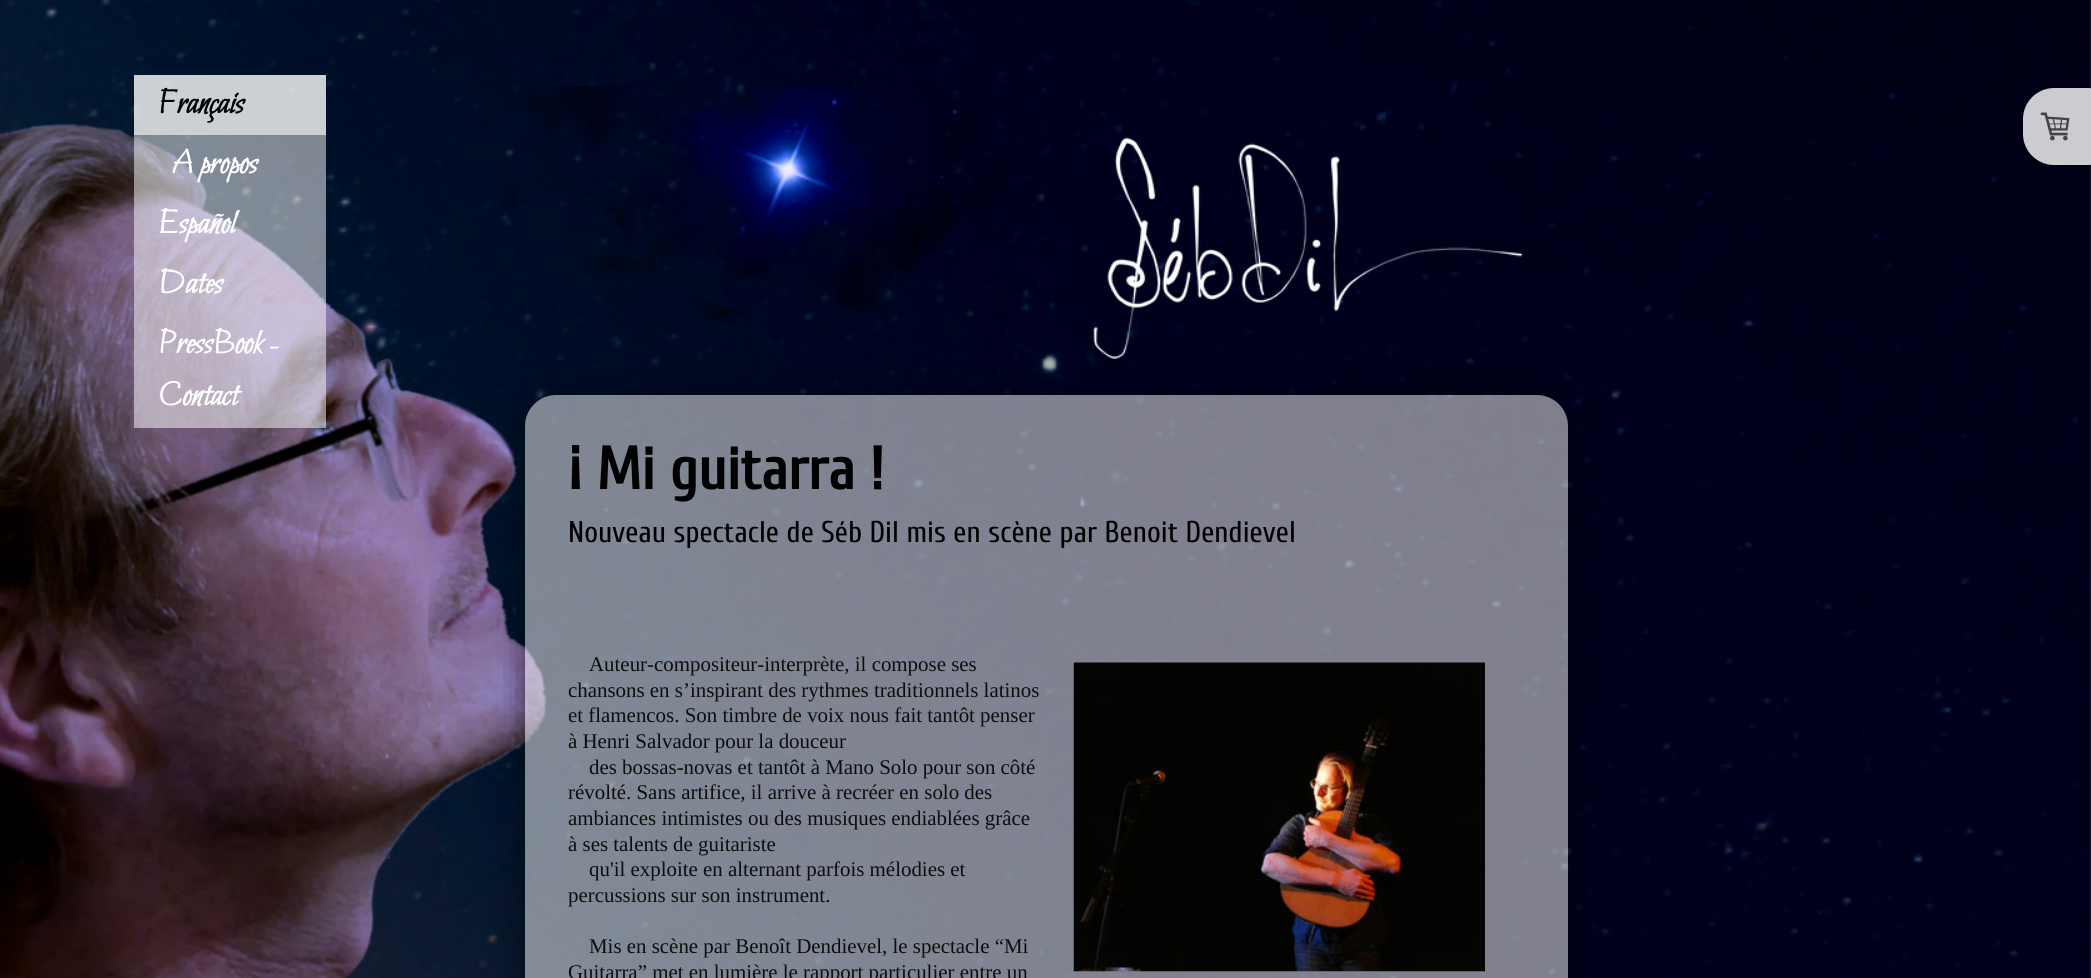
#include <cairo/cairo.h>
#include <math.h>
#include <stddef.h>


static void rounded_rect(cairo_t *cr, double x, double y, double w, double h, double r) {
  cairo_new_sub_path(cr);
  cairo_arc(cr, x + w - r, y + h - r, r, 0, M_PI / 2);
  cairo_arc(cr, x + r, y + h - r, r, M_PI / 2, M_PI);
  cairo_arc(cr, x + r, y + r, r, M_PI, 1.5 * M_PI);
  cairo_arc(cr, x + w - r, y + r, r, 1.5 * M_PI, 2 * M_PI);
  cairo_close_path(cr);
}

static void draw_shadow(cairo_t *cr, double x, double y, double w, double h, double r, double blur, double alpha) {
  cairo_push_group_with_content(cr, CAIRO_CONTENT_ALPHA);
  cairo_set_operator(cr, CAIRO_OPERATOR_SOURCE);
  for (int i = 15; i >= -15 && fmin(w, h) + blur * i / 3 > 0; i -= 2) {
    double e = blur * i / 6;
    cairo_set_source_rgba(cr, 0, 0, 0, alpha * erfc((i - 1) / 8.5) / 2);
    rounded_rect(cr, x - e, y - e, w + 2 * e, h + 2 * e, fmax(0, fmin(r + e + blur * .6, fmin(w, h) / 2 + e)));
    cairo_fill(cr);
  }
  cairo_pattern_t *soft = cairo_pop_group(cr);
  cairo_mask(cr, soft);
  cairo_pattern_destroy(soft);
}

static void draw_image(cairo_t *cr, const char *path, double x, double y, double w, double h) {
  cairo_surface_t *image = cairo_image_surface_create_from_png(path);
  cairo_save(cr);
  cairo_set_source_surface(cr, image, x, y);
  cairo_rectangle(cr, x, y, w, h);
  cairo_fill(cr);
  cairo_restore(cr);
  cairo_surface_destroy(image);
}

static void draw(cairo_t *cr) {
  cairo_set_source_rgb(cr, 1, 1, 1);
  cairo_paint(cr);
  draw_image(cr, "images/1.png", 0, 0, 2091, 978);
  cairo_set_source_rgba(cr, 1, 1, 1, 0.8);
  cairo_rectangle(cr, 134, 75, 192, 60);
  cairo_fill(cr);
  cairo_set_source_rgba(cr, 1, 1, 1, 0.5);
  cairo_rectangle(cr, 134, 135, 192, 60);
  cairo_fill(cr);
  cairo_rectangle(cr, 134, 195, 192, 60);
  cairo_fill(cr);
  cairo_rectangle(cr, 134, 255, 192, 60);
  cairo_fill(cr);
  cairo_rectangle(cr, 134, 315, 192, 113);
  cairo_fill(cr);
  cairo_set_source_rgba(cr, 1, 1, 1, 0.8);
  cairo_new_path(cr);
  cairo_move_to(cr, 2054, 88);
  cairo_line_to(cr, 2090, 88);
  cairo_curve_to(cr, 2090.5, 88, 2091, 88.5, 2091, 89);
  cairo_line_to(cr, 2091, 164);
  cairo_curve_to(cr, 2091, 164.5, 2090.5, 165, 2090, 165);
  cairo_line_to(cr, 2054, 165);
  cairo_curve_to(cr, 2037, 165, 2023, 151, 2023, 134);
  cairo_line_to(cr, 2023, 119);
  cairo_curve_to(cr, 2023, 102, 2037, 88, 2054, 88);
  cairo_close_path(cr);
  cairo_fill(cr);
  draw_image(cr, "images/2.png", 2040, 112, 30, 29);
  cairo_save(cr);
  cairo_set_fill_rule(cr, CAIRO_FILL_RULE_EVEN_ODD);
  cairo_new_path(cr);
  cairo_move_to(cr, 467, 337);
  cairo_line_to(cr, 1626, 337);
  cairo_line_to(cr, 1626, 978);
  cairo_line_to(cr, 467, 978);
  cairo_close_path(cr);
  cairo_move_to(cr, 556, 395);
  cairo_line_to(cr, 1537, 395);
  cairo_curve_to(cr, 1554, 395, 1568, 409, 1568, 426);
  cairo_line_to(cr, 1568, 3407);
  cairo_curve_to(cr, 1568, 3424, 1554, 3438, 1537, 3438);
  cairo_line_to(cr, 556, 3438);
  cairo_curve_to(cr, 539, 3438, 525, 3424, 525, 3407);
  cairo_line_to(cr, 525, 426);
  cairo_curve_to(cr, 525, 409, 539, 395, 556, 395);
  cairo_close_path(cr);
  cairo_clip(cr);
  cairo_set_source_rgb(cr, 0, 0, 0);
  draw_shadow(cr, 525, 395, 1043, 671, 31, 19, 0.5);
  cairo_restore(cr);
  draw_image(cr, "images/3.png", 1093, 137, 430, 222);
  cairo_set_source_rgba(cr, 1, 1, 1, 0.5);
  cairo_new_path(cr);
  cairo_move_to(cr, 556, 395);
  cairo_line_to(cr, 1537, 395);
  cairo_curve_to(cr, 1554, 395, 1568, 409, 1568, 426);
  cairo_line_to(cr, 1568, 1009);
  cairo_line_to(cr, 525, 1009);
  cairo_line_to(cr, 525, 426);
  cairo_curve_to(cr, 525, 409, 539, 395, 556, 395);
  cairo_close_path(cr);
  cairo_fill(cr);
  draw_image(cr, "images/4.png", 1073, 662, 412, 310);
  cairo_select_font_face(cr, "Bilbo", CAIRO_FONT_SLANT_NORMAL, CAIRO_FONT_WEIGHT_BOLD);
  cairo_set_font_size(cr, 35);
  cairo_set_source_rgb(cr, 0, 0, 0);
  cairo_move_to(cr, 158, 113);
  cairo_show_text(cr, "Français");
  cairo_set_source_rgb(cr, 1, 1, 1);
  cairo_move_to(cr, 171, 173);
  cairo_show_text(cr, "A propos");
  cairo_move_to(cr, 158, 233);
  cairo_show_text(cr, "Español");
  cairo_move_to(cr, 158, 293);
  cairo_show_text(cr, "Dates");
  cairo_move_to(cr, 158, 353);
  cairo_show_text(cr, "PressBook -");
  cairo_move_to(cr, 158, 405);
  cairo_show_text(cr, "Contact");
  cairo_select_font_face(cr, "Cuprum", CAIRO_FONT_SLANT_NORMAL, CAIRO_FONT_WEIGHT_BOLD);
  cairo_set_font_size(cr, 60);
  cairo_set_source_rgb(cr, 0, 0, 0);
  cairo_move_to(cr, 568, 489);
  cairo_show_text(cr, "¡ Mi guitarra !");
  cairo_select_font_face(cr, "Cuprum", CAIRO_FONT_SLANT_NORMAL, CAIRO_FONT_WEIGHT_NORMAL);
  cairo_set_font_size(cr, 30);
  cairo_move_to(cr, 568, 542);
  cairo_show_text(cr, "Nouveau spectacle de Séb Dil mis en scène par Benoit Dendievel");
  cairo_select_font_face(cr, "Liberation Serif", CAIRO_FONT_SLANT_NORMAL, CAIRO_FONT_WEIGHT_NORMAL);
  cairo_set_font_size(cr, 20.9);
  cairo_set_source_rgb(cr, 13 / 255.0, 13 / 255.0, 13 / 255.0);
  cairo_move_to(cr, 589, 671);
  cairo_show_text(cr, "Auteur-compositeur-interprète, il compose ses");
  cairo_move_to(cr, 568, 697);
  cairo_show_text(cr, "chansons en s’inspirant des rythmes traditionnels latinos");
  cairo_move_to(cr, 568, 722);
  cairo_show_text(cr, "et flamencos. Son timbre de voix nous fait tantôt penser");
  cairo_move_to(cr, 568, 748);
  cairo_show_text(cr, "à Henri Salvador pour la douceur");
  cairo_move_to(cr, 589, 774);
  cairo_show_text(cr, "des bossas-novas et tantôt à Mano Solo pour son côté");
  cairo_move_to(cr, 568, 799);
  cairo_show_text(cr, "révolté. Sans artifice, il arrive à recréer en solo des");
  cairo_move_to(cr, 568, 825);
  cairo_show_text(cr, "ambiances intimistes ou des musiques endiablées grâce");
  cairo_move_to(cr, 568, 851);
  cairo_show_text(cr, "à ses talents de guitariste");
  cairo_move_to(cr, 589, 876);
  cairo_show_text(cr, "qu'il exploite en alternant parfois mélodies et");
  cairo_move_to(cr, 568, 902);
  cairo_show_text(cr, "percussions sur son instrument.");
  cairo_move_to(cr, 589, 953);
  cairo_show_text(cr, "Mis en scène par Benoît Dendievel, le spectacle “Mi");
  cairo_move_to(cr, 568, 979);
  cairo_show_text(cr, "Guitarra” met en lumière le rapport particulier entre un");
}

int main(void) {
  cairo_surface_t *surface = cairo_image_surface_create(CAIRO_FORMAT_RGB24, 2091, 978);
  cairo_t *cr = cairo_create(surface);
  cairo_font_options_t *options = cairo_font_options_create();
  cairo_font_options_set_hint_metrics(options, CAIRO_HINT_METRICS_OFF);
  cairo_font_options_set_hint_style(options, CAIRO_HINT_STYLE_NONE);
  cairo_set_font_options(cr, options);
  cairo_set_miter_limit(cr, 4);
  draw(cr);
  cairo_surface_write_to_png(surface, "out.png");
  cairo_font_options_destroy(options);
  cairo_destroy(cr);
  cairo_surface_destroy(surface);
  return 0;
}
